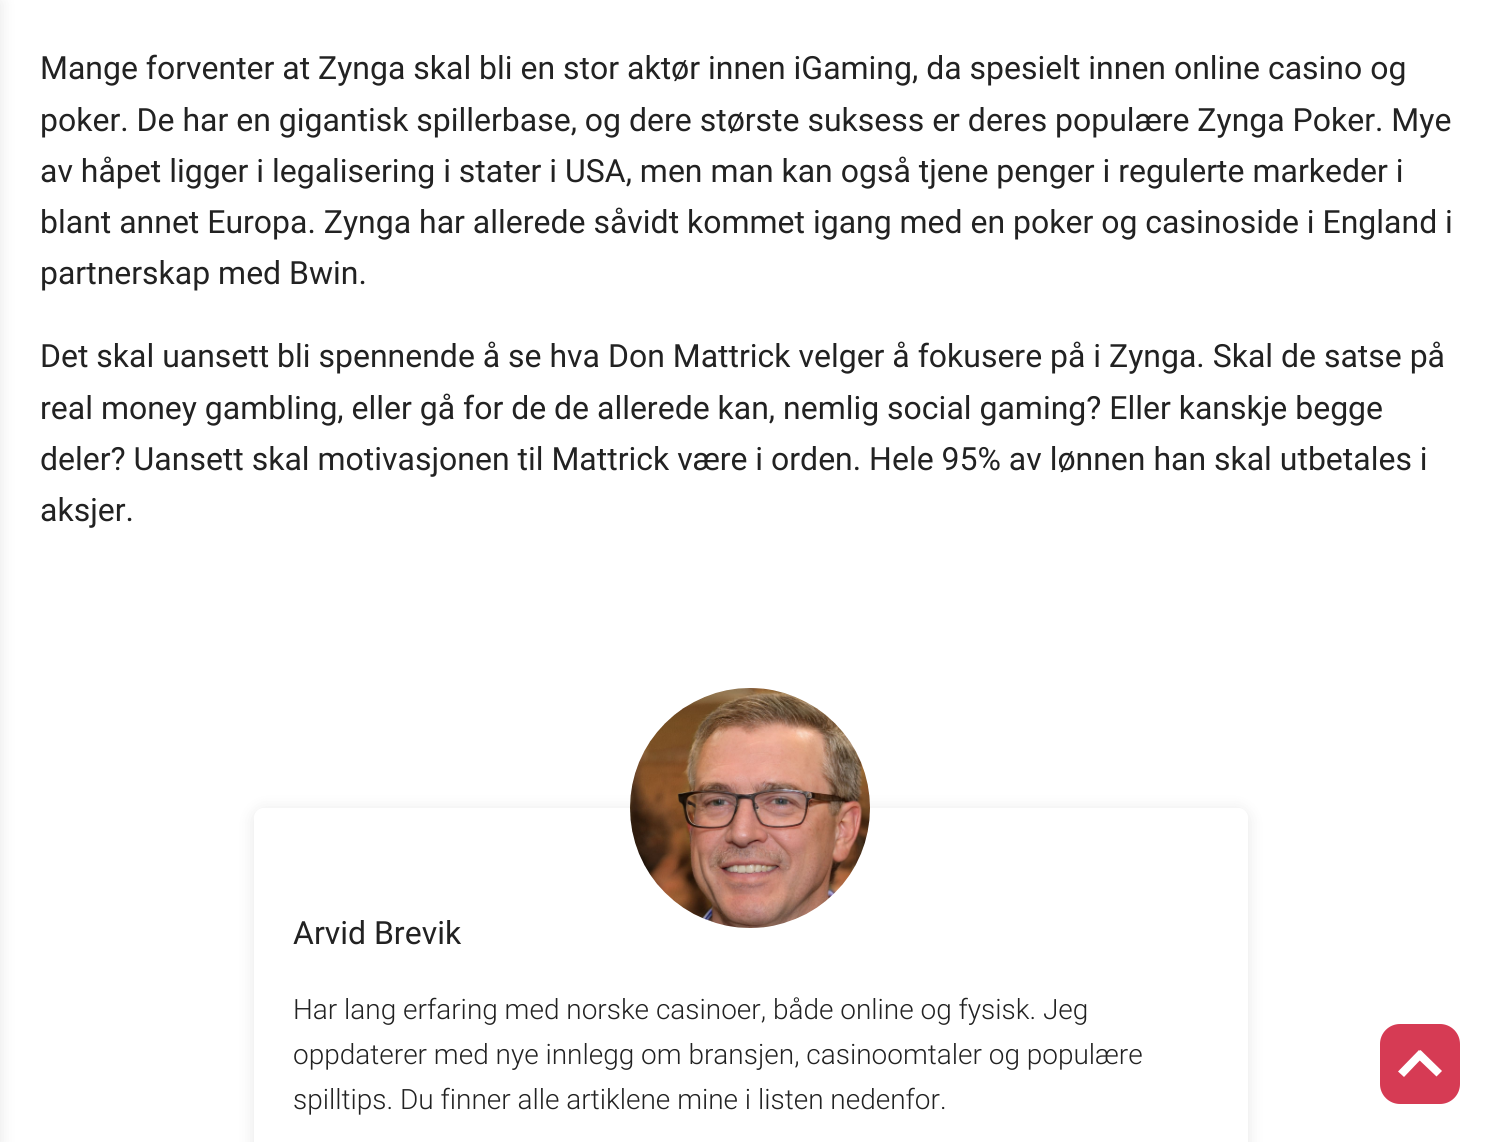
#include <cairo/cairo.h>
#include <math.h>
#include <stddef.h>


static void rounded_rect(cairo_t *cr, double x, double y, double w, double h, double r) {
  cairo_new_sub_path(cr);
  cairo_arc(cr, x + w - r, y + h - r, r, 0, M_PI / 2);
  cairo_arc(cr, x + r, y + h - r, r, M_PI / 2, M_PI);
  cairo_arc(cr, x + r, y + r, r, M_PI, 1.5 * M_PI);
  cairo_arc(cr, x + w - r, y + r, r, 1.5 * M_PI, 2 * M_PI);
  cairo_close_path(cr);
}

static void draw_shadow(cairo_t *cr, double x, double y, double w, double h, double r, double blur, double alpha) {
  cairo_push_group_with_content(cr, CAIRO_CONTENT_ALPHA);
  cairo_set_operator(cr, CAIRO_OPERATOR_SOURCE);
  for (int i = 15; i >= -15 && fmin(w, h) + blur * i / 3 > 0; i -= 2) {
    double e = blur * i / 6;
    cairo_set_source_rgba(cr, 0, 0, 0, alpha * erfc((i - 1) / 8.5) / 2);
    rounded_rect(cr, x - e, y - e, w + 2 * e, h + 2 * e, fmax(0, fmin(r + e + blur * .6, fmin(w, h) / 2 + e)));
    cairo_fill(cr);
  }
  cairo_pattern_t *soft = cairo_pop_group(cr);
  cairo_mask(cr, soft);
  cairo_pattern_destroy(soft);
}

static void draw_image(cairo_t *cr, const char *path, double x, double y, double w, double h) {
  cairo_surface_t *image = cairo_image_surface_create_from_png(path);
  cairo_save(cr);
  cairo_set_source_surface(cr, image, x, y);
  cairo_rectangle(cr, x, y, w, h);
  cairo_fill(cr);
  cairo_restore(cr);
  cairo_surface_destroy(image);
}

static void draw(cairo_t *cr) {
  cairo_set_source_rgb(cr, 1, 1, 1);
  cairo_paint(cr);
  cairo_set_source_rgb(cr, 0, 0, 0);
  draw_shadow(cr, -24, 2, 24, 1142, 0, 8, 0.1);
  cairo_save(cr);
  cairo_set_fill_rule(cr, CAIRO_FILL_RULE_EVEN_ODD);
  cairo_new_path(cr);
  cairo_move_to(cr, 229, 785);
  cairo_line_to(cr, 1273, 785);
  cairo_line_to(cr, 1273, 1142);
  cairo_line_to(cr, 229, 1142);
  cairo_close_path(cr);
  cairo_move_to(cr, 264, 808);
  cairo_line_to(cr, 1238, 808);
  cairo_curve_to(cr, 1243.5, 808, 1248, 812.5, 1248, 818);
  cairo_line_to(cr, 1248, 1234);
  cairo_curve_to(cr, 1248, 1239.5, 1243.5, 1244, 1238, 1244);
  cairo_line_to(cr, 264, 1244);
  cairo_curve_to(cr, 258.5, 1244, 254, 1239.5, 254, 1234);
  cairo_line_to(cr, 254, 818);
  cairo_curve_to(cr, 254, 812.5, 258.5, 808, 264, 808);
  cairo_close_path(cr);
  cairo_clip(cr);
  draw_shadow(cr, 254, 810, 994, 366, 10, 8, 0.1);
  cairo_restore(cr);
  draw_image(cr, "images/1.png", 630, 688, 240, 240);
  cairo_set_source_rgb(cr, 214 / 255.0, 59 / 255.0, 84 / 255.0);
  rounded_rect(cr, 1380, 1024, 80, 80, 20);
  cairo_fill(cr);
  cairo_set_source_rgb(cr, 1, 1, 1);
  cairo_new_path(cr);
  cairo_move_to(cr, 1420.5, 1050);
  cairo_line_to(cr, 1442, 1071);
  cairo_line_to(cr, 1436.5, 1076.5);
  cairo_line_to(cr, 1415, 1056);
  cairo_close_path(cr);
  cairo_fill(cr);
  cairo_new_path(cr);
  cairo_move_to(cr, 1419, 1050);
  cairo_line_to(cr, 1424.5, 1055.5);
  cairo_line_to(cr, 1404, 1077);
  cairo_line_to(cr, 1398, 1071.5);
  cairo_close_path(cr);
  cairo_fill(cr);
  cairo_select_font_face(cr, "Roboto", CAIRO_FONT_SLANT_NORMAL, CAIRO_FONT_WEIGHT_NORMAL);
  cairo_set_font_size(cr, 32);
  cairo_set_source_rgb(cr, 34 / 255.0, 34 / 255.0, 34 / 255.0);
  cairo_move_to(cr, 40, 79);
  cairo_show_text(cr, "Mange forventer at Zynga skal bli en stor aktør innen iGaming, da spesielt innen online casino og");
  cairo_move_to(cr, 40, 131);
  cairo_show_text(cr, "poker. De har en gigantisk spillerbase, og dere største suksess er deres populære Zynga Poker. Mye");
  cairo_move_to(cr, 40, 182);
  cairo_show_text(cr, "av håpet ligger i legalisering i stater i USA, men man kan også tjene penger i regulerte markeder i");
  cairo_move_to(cr, 40, 233);
  cairo_show_text(cr, "blant annet Europa. Zynga har allerede såvidt kommet igang med en poker og casinoside i England i");
  cairo_move_to(cr, 40, 284);
  cairo_show_text(cr, "partnerskap med Bwin.");
  cairo_move_to(cr, 40, 367);
  cairo_show_text(cr, "Det skal uansett bli spennende å se hva Don Mattrick velger å fokusere på i Zynga. Skal de satse på");
  cairo_move_to(cr, 40, 419);
  cairo_show_text(cr, "real money gambling, eller gå for de de allerede kan, nemlig social gaming? Eller kanskje begge");
  cairo_move_to(cr, 40, 470);
  cairo_show_text(cr, "deler? Uansett skal motivasjonen til Mattrick være i orden. Hele 95% av lønnen han skal utbetales i");
  cairo_move_to(cr, 40, 521);
  cairo_show_text(cr, "aksjer.");
  cairo_move_to(cr, 293, 944);
  cairo_show_text(cr, "Arvid Brevik");
  cairo_select_font_face(cr, "Roboto Light", CAIRO_FONT_SLANT_NORMAL, CAIRO_FONT_WEIGHT_NORMAL);
  cairo_set_font_size(cr, 28);
  cairo_move_to(cr, 293, 1019);
  cairo_show_text(cr, "Har lang erfaring med norske casinoer, både online og fysisk. Jeg");
  cairo_move_to(cr, 293, 1064);
  cairo_show_text(cr, "oppdaterer med nye innlegg om bransjen, casinoomtaler og populære");
  cairo_move_to(cr, 293, 1109);
  cairo_show_text(cr, "spilltips. Du finner alle artiklene mine i listen nedenfor.");
}

int main(void) {
  cairo_surface_t *surface = cairo_image_surface_create(CAIRO_FORMAT_RGB24, 1499, 1142);
  cairo_t *cr = cairo_create(surface);
  cairo_font_options_t *options = cairo_font_options_create();
  cairo_font_options_set_hint_metrics(options, CAIRO_HINT_METRICS_OFF);
  cairo_font_options_set_hint_style(options, CAIRO_HINT_STYLE_NONE);
  cairo_set_font_options(cr, options);
  cairo_set_miter_limit(cr, 4);
  draw(cr);
  cairo_surface_write_to_png(surface, "out.png");
  cairo_font_options_destroy(options);
  cairo_destroy(cr);
  cairo_surface_destroy(surface);
  return 0;
}
